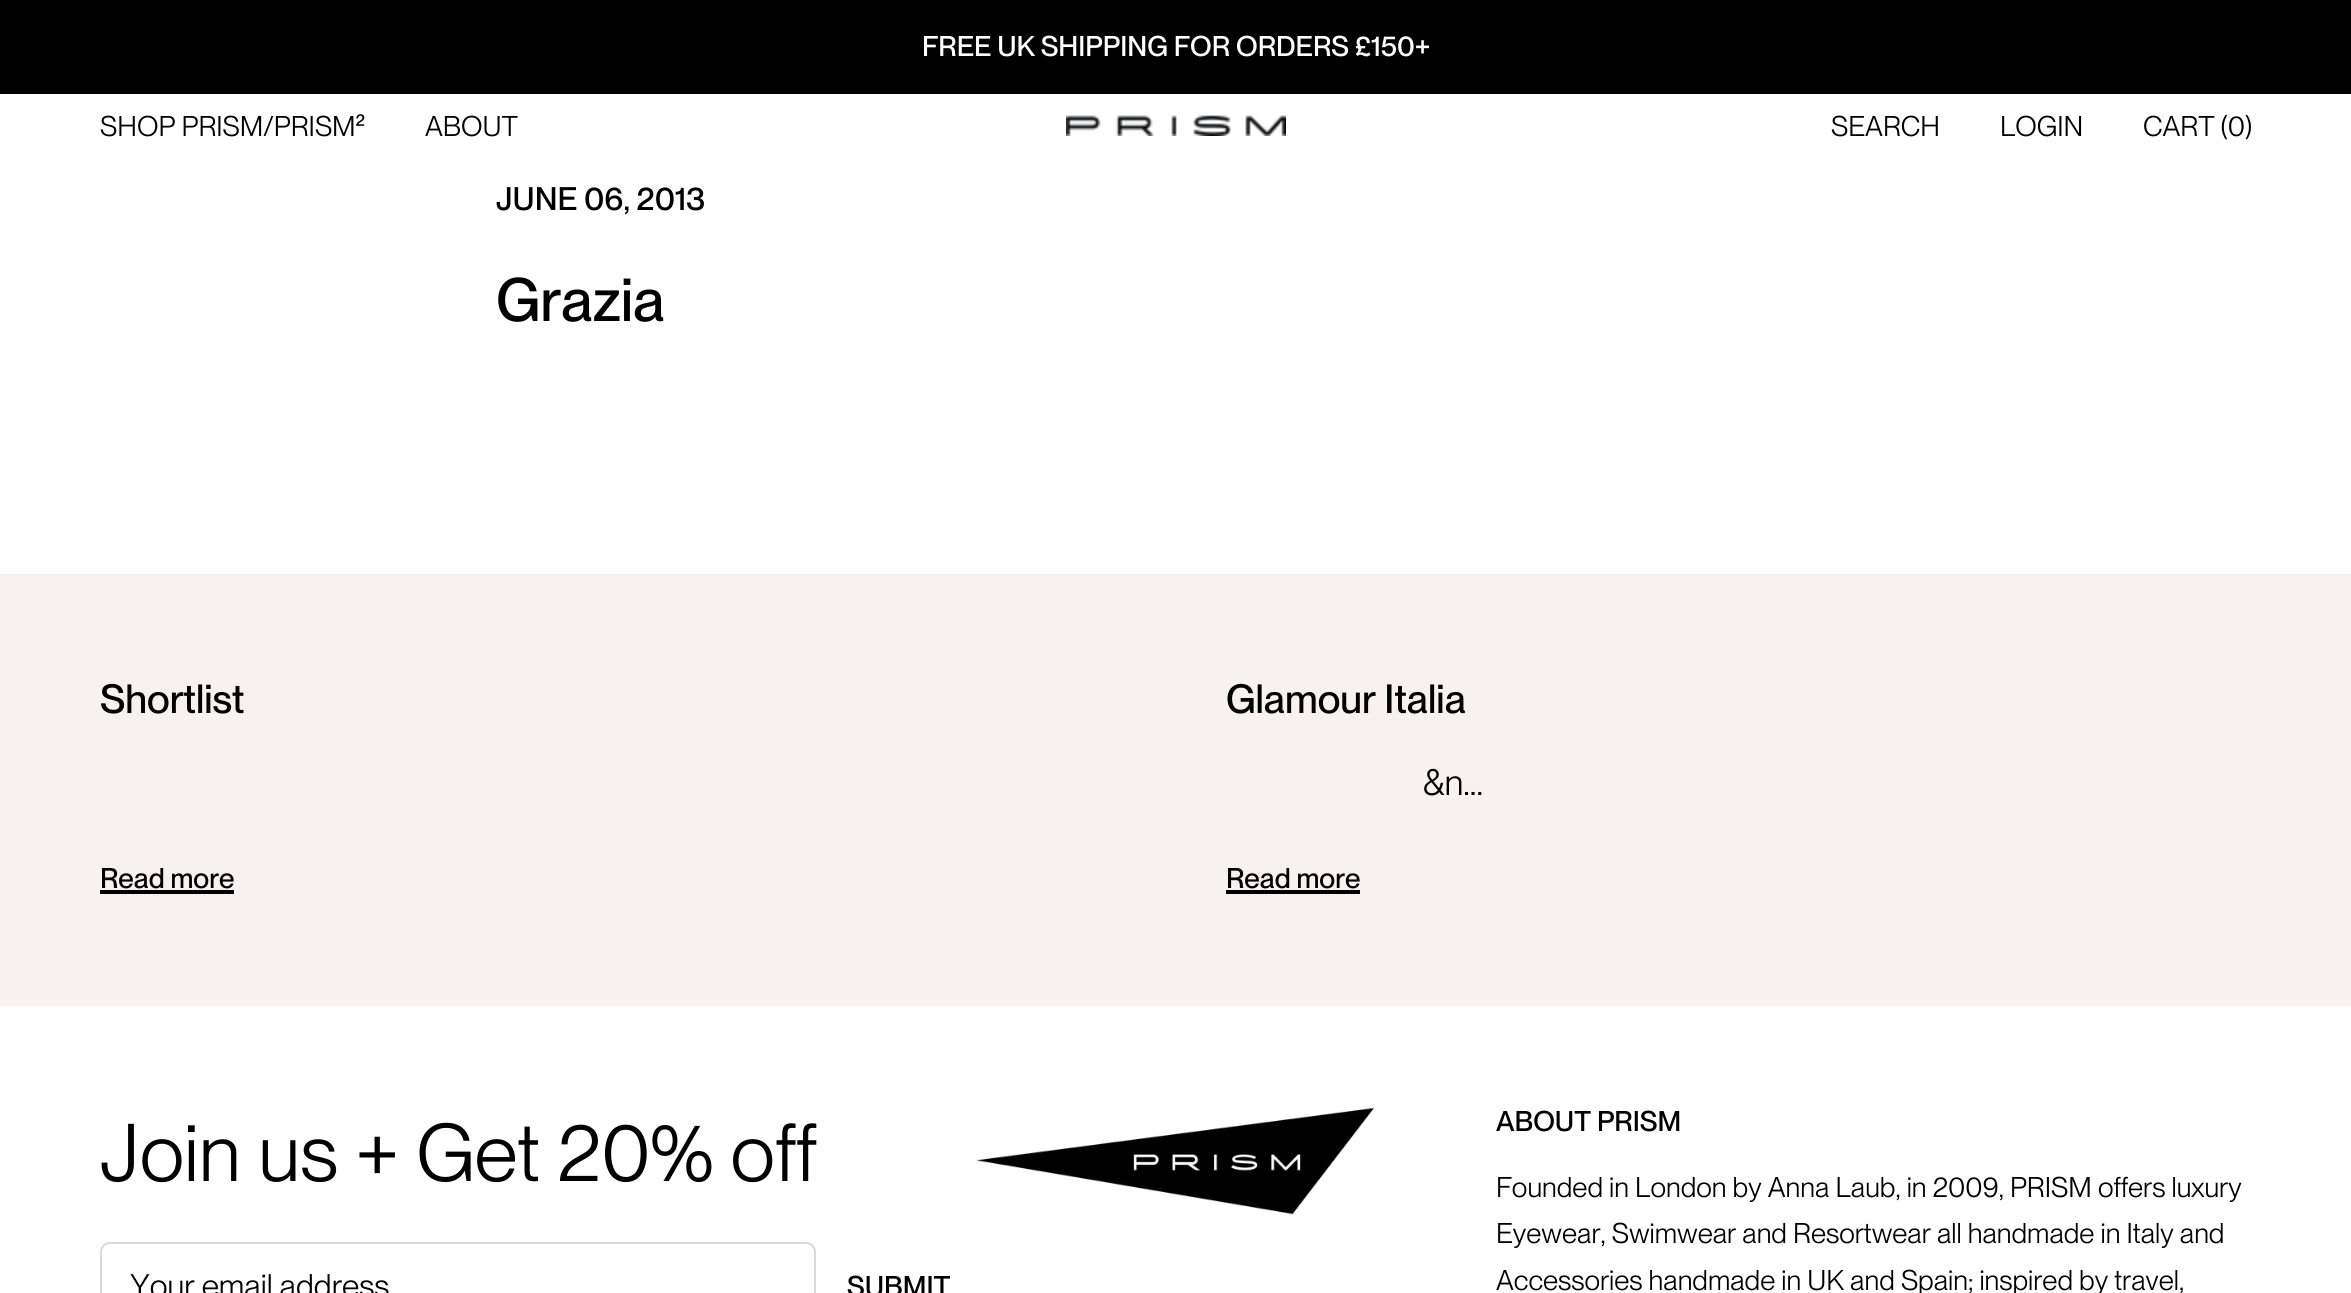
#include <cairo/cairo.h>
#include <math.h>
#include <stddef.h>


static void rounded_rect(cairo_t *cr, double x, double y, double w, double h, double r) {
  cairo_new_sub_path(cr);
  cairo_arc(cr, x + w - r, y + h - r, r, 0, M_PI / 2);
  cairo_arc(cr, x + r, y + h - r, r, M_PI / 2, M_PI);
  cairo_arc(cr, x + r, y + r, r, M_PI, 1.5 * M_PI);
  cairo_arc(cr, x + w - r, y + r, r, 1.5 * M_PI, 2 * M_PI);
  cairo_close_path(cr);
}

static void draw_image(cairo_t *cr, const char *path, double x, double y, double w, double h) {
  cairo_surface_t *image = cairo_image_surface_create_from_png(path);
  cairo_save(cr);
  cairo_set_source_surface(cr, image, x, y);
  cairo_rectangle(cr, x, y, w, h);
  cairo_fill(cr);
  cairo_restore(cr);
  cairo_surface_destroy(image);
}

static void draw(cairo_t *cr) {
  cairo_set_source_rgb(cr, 1, 1, 1);
  cairo_paint(cr);
  cairo_set_source_rgb(cr, 0, 0, 0);
  cairo_rectangle(cr, 0, 0, 2351, 94);
  cairo_fill(cr);
  draw_image(cr, "images/1.png", 1066, 115, 220, 21);
  cairo_set_source_rgb(cr, 247 / 255.0, 242 / 255.0, 240 / 255.0);
  cairo_rectangle(cr, 0, 574, 2351, 432);
  cairo_fill(cr);
  cairo_set_source_rgb(cr, 0, 0, 0);
  cairo_rectangle(cr, 100, 890, 134, 4);
  cairo_fill(cr);
  cairo_rectangle(cr, 1226, 890, 134, 4);
  cairo_fill(cr);
  rounded_rect(cr, 101, 1243, 714, 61, 9);
  cairo_set_source_rgb(cr, 217 / 255.0, 217 / 255.0, 217 / 255.0);
  cairo_stroke(cr);
  draw_image(cr, "images/2.png", 976, 1107, 398, 108);
  cairo_select_font_face(cr, "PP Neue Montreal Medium", CAIRO_FONT_SLANT_NORMAL, CAIRO_FONT_WEIGHT_NORMAL);
  cairo_set_font_size(cr, 28);
  cairo_set_source_rgb(cr, 1, 1, 1);
  cairo_move_to(cr, 922, 56);
  cairo_show_text(cr, "FREE UK SHIPPING FOR ORDERS £150+");
  cairo_select_font_face(cr, "PP Neue Montreal", CAIRO_FONT_SLANT_NORMAL, CAIRO_FONT_WEIGHT_NORMAL);
  cairo_set_source_rgb(cr, 0, 0, 0);
  cairo_move_to(cr, 100, 136);
  cairo_show_text(cr, "SHOP PRISM/PRISM²");
  cairo_move_to(cr, 425, 136);
  cairo_show_text(cr, "ABOUT");
  cairo_move_to(cr, 1831, 136);
  cairo_show_text(cr, "SEARCH");
  cairo_move_to(cr, 2000, 136);
  cairo_show_text(cr, "LOGIN");
  cairo_move_to(cr, 2143, 136);
  cairo_show_text(cr, "CART (0)");
  cairo_select_font_face(cr, "PP Neue Montreal Medium", CAIRO_FONT_SLANT_NORMAL, CAIRO_FONT_WEIGHT_NORMAL);
  cairo_set_font_size(cr, 32);
  cairo_move_to(cr, 496, 210);
  cairo_show_text(cr, "JUNE 06, 2013");
  cairo_set_font_size(cr, 60);
  cairo_move_to(cr, 496, 321);
  cairo_show_text(cr, "Grazia");
  cairo_set_font_size(cr, 40);
  cairo_move_to(cr, 100, 713);
  cairo_show_text(cr, "Shortlist");
  cairo_set_font_size(cr, 28);
  cairo_move_to(cr, 100, 888);
  cairo_show_text(cr, "Read more");
  cairo_set_font_size(cr, 40);
  cairo_move_to(cr, 1226, 713);
  cairo_show_text(cr, "Glamour Italia");
  cairo_select_font_face(cr, "PP Neue Montreal", CAIRO_FONT_SLANT_NORMAL, CAIRO_FONT_WEIGHT_NORMAL);
  cairo_set_font_size(cr, 36);
  cairo_move_to(cr, 1423, 795);
  cairo_show_text(cr, "&n...");
  cairo_select_font_face(cr, "PP Neue Montreal Medium", CAIRO_FONT_SLANT_NORMAL, CAIRO_FONT_WEIGHT_NORMAL);
  cairo_set_font_size(cr, 28);
  cairo_move_to(cr, 1226, 888);
  cairo_show_text(cr, "Read more");
  cairo_select_font_face(cr, "PP Neue Montreal", CAIRO_FONT_SLANT_NORMAL, CAIRO_FONT_WEIGHT_NORMAL);
  cairo_set_font_size(cr, 80);
  cairo_move_to(cr, 100, 1181);
  cairo_show_text(cr, "Join us + Get 20% off");
  cairo_set_font_size(cr, 32);
  cairo_move_to(cr, 130, 1297);
  cairo_show_text(cr, "Your email address");
  cairo_select_font_face(cr, "PP Neue Montreal Medium", CAIRO_FONT_SLANT_NORMAL, CAIRO_FONT_WEIGHT_NORMAL);
  cairo_set_font_size(cr, 28);
  cairo_move_to(cr, 847, 1296);
  cairo_show_text(cr, "SUBMIT");
  cairo_move_to(cr, 1496, 1131);
  cairo_show_text(cr, "ABOUT PRISM");
  cairo_select_font_face(cr, "PP Neue Montreal", CAIRO_FONT_SLANT_NORMAL, CAIRO_FONT_WEIGHT_NORMAL);
  cairo_move_to(cr, 1496, 1197);
  cairo_show_text(cr, "Founded in London by Anna Laub, in 2009, PRISM offers luxury");
  cairo_move_to(cr, 1496, 1243);
  cairo_show_text(cr, "Eyewear, Swimwear and Resortwear all handmade in Italy and");
  cairo_move_to(cr, 1496, 1290);
  cairo_show_text(cr, "Accessories handmade in UK and Spain; inspired by travel,");
}

int main(void) {
  cairo_surface_t *surface = cairo_image_surface_create(CAIRO_FORMAT_RGB24, 2351, 1293);
  cairo_t *cr = cairo_create(surface);
  cairo_font_options_t *options = cairo_font_options_create();
  cairo_font_options_set_hint_metrics(options, CAIRO_HINT_METRICS_OFF);
  cairo_font_options_set_hint_style(options, CAIRO_HINT_STYLE_NONE);
  cairo_set_font_options(cr, options);
  cairo_set_miter_limit(cr, 4);
  draw(cr);
  cairo_surface_write_to_png(surface, "out.png");
  cairo_font_options_destroy(options);
  cairo_destroy(cr);
  cairo_surface_destroy(surface);
  return 0;
}
